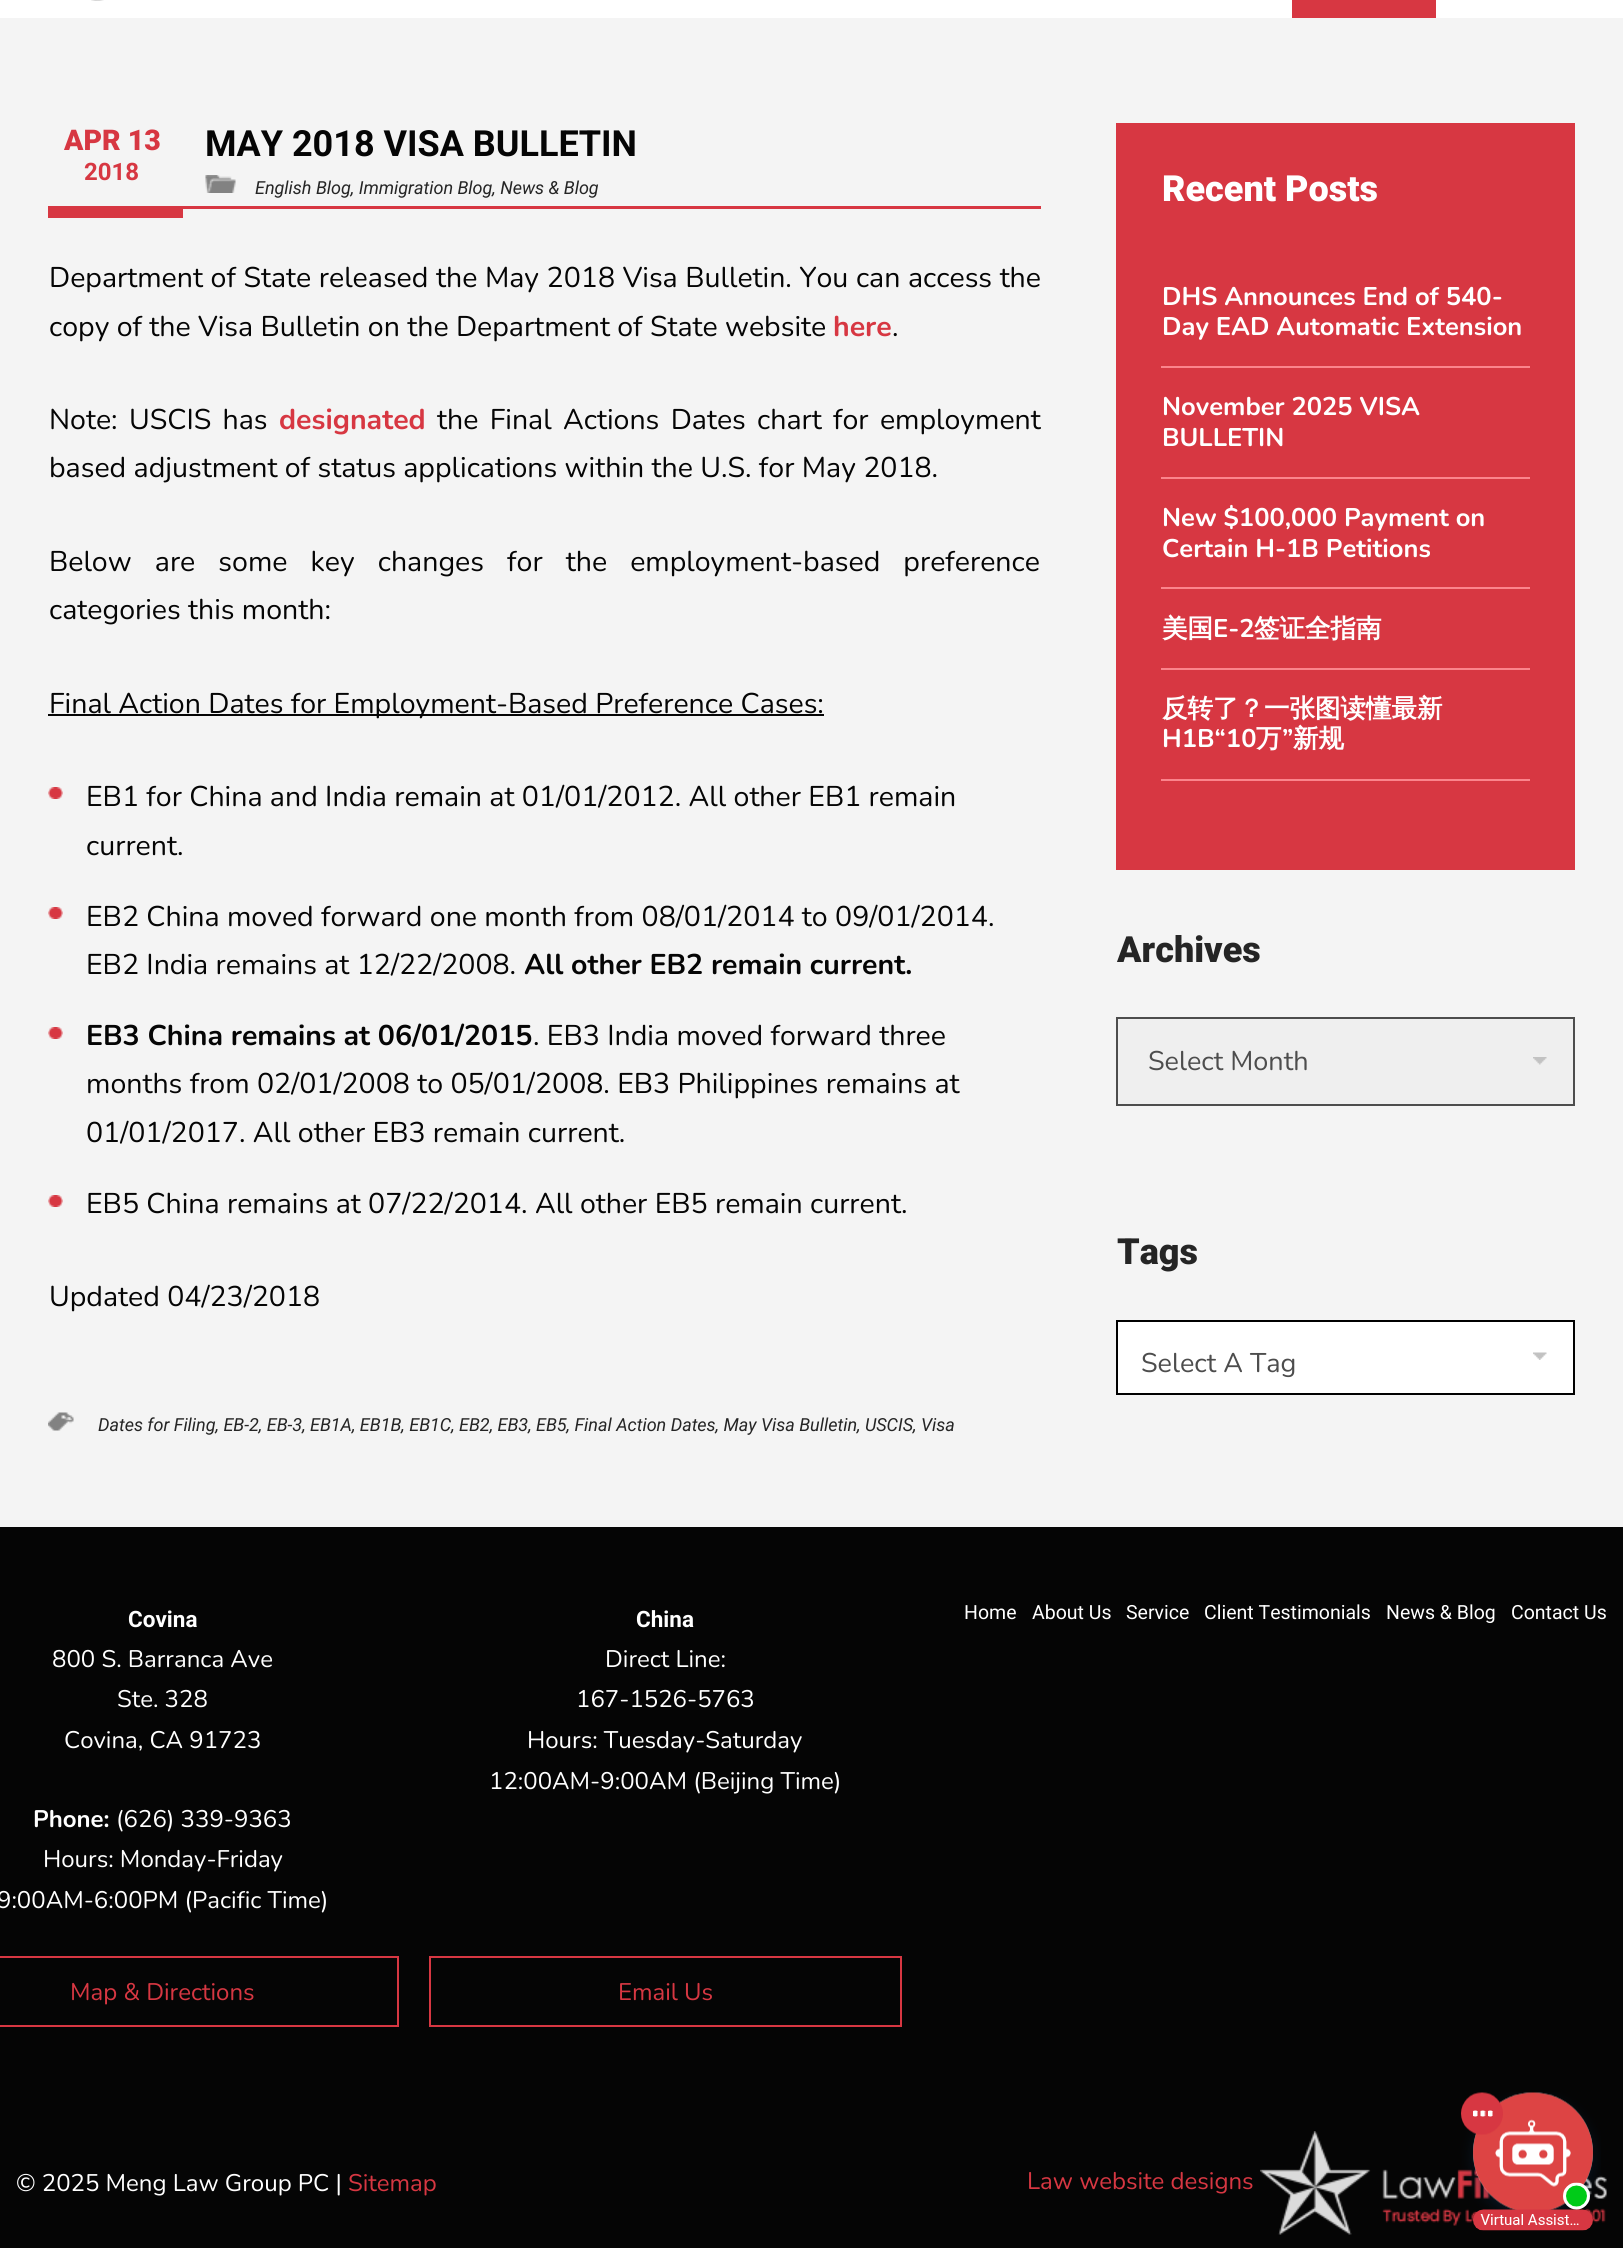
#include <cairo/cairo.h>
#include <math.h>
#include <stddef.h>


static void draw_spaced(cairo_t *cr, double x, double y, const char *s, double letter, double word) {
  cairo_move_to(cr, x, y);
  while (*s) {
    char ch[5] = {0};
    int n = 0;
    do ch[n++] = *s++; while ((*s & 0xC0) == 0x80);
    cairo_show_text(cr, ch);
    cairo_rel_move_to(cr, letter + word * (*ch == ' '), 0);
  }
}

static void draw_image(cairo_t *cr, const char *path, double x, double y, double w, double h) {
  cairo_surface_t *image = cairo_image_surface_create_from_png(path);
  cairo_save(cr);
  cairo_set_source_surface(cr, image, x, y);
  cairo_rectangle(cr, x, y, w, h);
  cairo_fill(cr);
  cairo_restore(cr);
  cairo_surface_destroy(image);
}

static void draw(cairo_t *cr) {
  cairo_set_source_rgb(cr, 1, 1, 1);
  cairo_paint(cr);
  draw_image(cr, "images/1.png", 91, 0, 13, 1);
  cairo_set_source_rgb(cr, 215 / 255.0, 55 / 255.0, 66 / 255.0);
  cairo_rectangle(cr, 1292, 0, 144, 18);
  cairo_fill(cr);
  cairo_set_source_rgb(cr, 244 / 255.0, 244 / 255.0, 244 / 255.0);
  cairo_rectangle(cr, 0, 18, 1623, 1509);
  cairo_fill(cr);
  cairo_set_source_rgb(cr, 215 / 255.0, 55 / 255.0, 66 / 255.0);
  cairo_rectangle(cr, 48, 206, 993, 3);
  cairo_fill(cr);
  draw_image(cr, "images/2.png", 205, 175, 31, 18);
  cairo_rectangle(cr, 48, 209, 135, 9);
  cairo_fill(cr);
  cairo_set_source_rgb(cr, 5 / 255.0, 5 / 255.0, 5 / 255.0);
  cairo_rectangle(cr, 48, 714, 776, 2);
  cairo_fill(cr);
  draw_image(cr, "images/3.png", 48, 787, 15, 12);
  draw_image(cr, "images/3.png", 48, 907, 15, 12);
  draw_image(cr, "images/3.png", 48, 1027, 15, 12);
  draw_image(cr, "images/3.png", 48, 1195, 15, 12);
  draw_image(cr, "images/4.png", 48, 1412, 26, 19);
  cairo_set_source_rgb(cr, 215 / 255.0, 55 / 255.0, 66 / 255.0);
  cairo_rectangle(cr, 1116, 123, 459, 747);
  cairo_fill(cr);
  cairo_set_source_rgb(cr, 251 / 255.0, 132 / 255.0, 140 / 255.0);
  cairo_rectangle(cr, 1161, 366, 369, 2);
  cairo_fill(cr);
  cairo_rectangle(cr, 1161, 477, 369, 2);
  cairo_fill(cr);
  cairo_rectangle(cr, 1161, 587, 369, 2);
  cairo_fill(cr);
  cairo_rectangle(cr, 1161, 668, 369, 2);
  cairo_fill(cr);
  cairo_rectangle(cr, 1161, 779, 369, 2);
  cairo_fill(cr);
  cairo_set_source_rgb(cr, 239 / 255.0, 239 / 255.0, 239 / 255.0);
  cairo_rectangle(cr, 1118, 1019, 455, 85);
  cairo_fill(cr);
  draw_image(cr, "images/5.png", 1533, 1057, 14, 8);
  cairo_rectangle(cr, 1117, 1018, 457, 87);
  cairo_set_source_rgb(cr, 77 / 255.0, 77 / 255.0, 77 / 255.0);
  cairo_stroke(cr);
  cairo_set_source_rgb(cr, 1, 1, 1);
  cairo_rectangle(cr, 1118, 1322, 455, 71);
  cairo_fill(cr);
  draw_image(cr, "images/6.png", 1533, 1352, 14, 8);
  cairo_rectangle(cr, 1117, 1321, 457, 73);
  cairo_set_source_rgb(cr, 0, 0, 0);
  cairo_stroke(cr);
  cairo_set_source_rgb(cr, 5 / 255.0, 5 / 255.0, 5 / 255.0);
  cairo_rectangle(cr, 0, 1527, 1623, 721);
  cairo_fill(cr);
  cairo_rectangle(cr, -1, 1957, 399, 69);
  cairo_set_source_rgb(cr, 215 / 255.0, 55 / 255.0, 66 / 255.0);
  cairo_stroke(cr);
  cairo_rectangle(cr, 430, 1957, 471, 69);
  cairo_stroke(cr);
  draw_image(cr, "images/7.png", 1260, 2131, 347, 104);
  draw_image(cr, "images/8.png", 1461, 2092, 140, 139);
  cairo_select_font_face(cr, "Roboto Black", CAIRO_FONT_SLANT_NORMAL, CAIRO_FONT_WEIGHT_NORMAL);
  cairo_set_font_size(cr, 28.5);
  cairo_move_to(cr, 64, 150);
  cairo_show_text(cr, "APR 13");
  cairo_select_font_face(cr, "Roboto", CAIRO_FONT_SLANT_NORMAL, CAIRO_FONT_WEIGHT_BOLD);
  cairo_set_font_size(cr, 24);
  cairo_move_to(cr, 84, 180);
  cairo_show_text(cr, "2018");
  cairo_set_font_size(cr, 36);
  cairo_set_source_rgb(cr, 5 / 255.0, 5 / 255.0, 5 / 255.0);
  cairo_move_to(cr, 205, 156);
  cairo_show_text(cr, "MAY 2018 VISA BULLETIN");
  cairo_select_font_face(cr, "Roboto", CAIRO_FONT_SLANT_ITALIC, CAIRO_FONT_WEIGHT_NORMAL);
  cairo_set_font_size(cr, 18);
  cairo_set_source_rgb(cr, 37 / 255.0, 37 / 255.0, 37 / 255.0);
  cairo_move_to(cr, 255, 194);
  cairo_show_text(cr, "English Blog, Immigration Blog, News & Blog");
  cairo_select_font_face(cr, "Nunito", CAIRO_FONT_SLANT_NORMAL, CAIRO_FONT_WEIGHT_NORMAL);
  cairo_set_font_size(cr, 28.5);
  cairo_set_source_rgb(cr, 5 / 255.0, 5 / 255.0, 5 / 255.0);
  draw_spaced(cr, 49, 287, "Department of State released the May 2018 Visa Bulletin. You can access the", 0, 0.25);
  cairo_move_to(cr, 49, 336);
  cairo_show_text(cr, "copy of the Visa Bulletin on the Department of State website");
  cairo_select_font_face(cr, "Nunito", CAIRO_FONT_SLANT_NORMAL, CAIRO_FONT_WEIGHT_BOLD);
  cairo_set_source_rgb(cr, 215 / 255.0, 55 / 255.0, 66 / 255.0);
  cairo_move_to(cr, 833, 336);
  cairo_show_text(cr, "here");
  cairo_select_font_face(cr, "Nunito", CAIRO_FONT_SLANT_NORMAL, CAIRO_FONT_WEIGHT_NORMAL);
  cairo_set_source_rgb(cr, 5 / 255.0, 5 / 255.0, 5 / 255.0);
  cairo_move_to(cr, 892, 336);
  cairo_show_text(cr, ".");
  draw_spaced(cr, 49, 429, "Note: USCIS has", 0, 4);
  cairo_select_font_face(cr, "Nunito", CAIRO_FONT_SLANT_NORMAL, CAIRO_FONT_WEIGHT_BOLD);
  cairo_set_source_rgb(cr, 215 / 255.0, 55 / 255.0, 66 / 255.0);
  cairo_move_to(cr, 279, 429);
  cairo_show_text(cr, "designated");
  cairo_select_font_face(cr, "Nunito", CAIRO_FONT_SLANT_NORMAL, CAIRO_FONT_WEIGHT_NORMAL);
  cairo_set_source_rgb(cr, 5 / 255.0, 5 / 255.0, 5 / 255.0);
  draw_spaced(cr, 437, 429, "the Final Actions Dates chart", 0, 4);
  draw_spaced(cr, 833, 429, "for employment", 0, 4);
  cairo_move_to(cr, 49, 477);
  cairo_show_text(cr, "based adjustment of status applications within the U.S. for May 2018.");
  draw_spaced(cr, 49, 571, "Below are some key changes for the employment-based preference", 0, 15.75);
  cairo_move_to(cr, 49, 619);
  cairo_show_text(cr, "categories this month:");
  cairo_move_to(cr, 49, 713);
  cairo_show_text(cr, "Final Action Dates for Employment-Based Preference Cases:");
  cairo_move_to(cr, 86, 806);
  cairo_show_text(cr, "EB1 for China and India remain at 01/01/2012. All other EB1 remain");
  cairo_move_to(cr, 86, 855);
  cairo_show_text(cr, "current.");
  cairo_move_to(cr, 86, 926);
  cairo_show_text(cr, "EB2 China moved forward one month from 08/01/2014 to 09/01/2014.");
  cairo_move_to(cr, 86, 974);
  cairo_show_text(cr, "EB2 India remains at 12/22/2008.");
  cairo_select_font_face(cr, "Nunito", CAIRO_FONT_SLANT_NORMAL, CAIRO_FONT_WEIGHT_BOLD);
  cairo_move_to(cr, 524, 974);
  cairo_show_text(cr, "All other EB2 remain current.");
  cairo_move_to(cr, 86, 1045);
  cairo_show_text(cr, "EB3 China remains at 06/01/2015");
  cairo_select_font_face(cr, "Nunito", CAIRO_FONT_SLANT_NORMAL, CAIRO_FONT_WEIGHT_NORMAL);
  cairo_move_to(cr, 533, 1045);
  cairo_show_text(cr, ". EB3 India moved forward three");
  cairo_move_to(cr, 86, 1093);
  cairo_show_text(cr, "months from 02/01/2008 to 05/01/2008. EB3 Philippines remains at");
  cairo_move_to(cr, 86, 1142);
  cairo_show_text(cr, "01/01/2017. All other EB3 remain current.");
  cairo_move_to(cr, 86, 1213);
  cairo_show_text(cr, "EB5 China remains at 07/22/2014. All other EB5 remain current.");
  cairo_move_to(cr, 49, 1306);
  cairo_show_text(cr, "Updated 04/23/2018");
  cairo_select_font_face(cr, "Roboto", CAIRO_FONT_SLANT_ITALIC, CAIRO_FONT_WEIGHT_NORMAL);
  cairo_set_font_size(cr, 18);
  cairo_set_source_rgb(cr, 37 / 255.0, 37 / 255.0, 37 / 255.0);
  cairo_move_to(cr, 98, 1431);
  cairo_show_text(cr, "Dates for Filing, EB-2, EB-3, EB1A, EB1B, EB1C, EB2, EB3, EB5, Final Action Dates, May Visa Bulletin, USCIS, Visa");
  cairo_select_font_face(cr, "Roboto Black", CAIRO_FONT_SLANT_NORMAL, CAIRO_FONT_WEIGHT_NORMAL);
  cairo_set_font_size(cr, 36);
  cairo_set_source_rgb(cr, 1, 1, 1);
  cairo_move_to(cr, 1162, 201);
  cairo_show_text(cr, "Recent Posts");
  cairo_select_font_face(cr, "Nunito", CAIRO_FONT_SLANT_NORMAL, CAIRO_FONT_WEIGHT_BOLD);
  cairo_set_font_size(cr, 25.5);
  cairo_move_to(cr, 1162, 305);
  cairo_show_text(cr, "DHS Announces End of 540-");
  cairo_move_to(cr, 1162, 335);
  cairo_show_text(cr, "Day EAD Automatic Extension");
  cairo_move_to(cr, 1162, 415);
  cairo_show_text(cr, "November 2025 VISA");
  cairo_move_to(cr, 1162, 446);
  cairo_show_text(cr, "BULLETIN");
  cairo_move_to(cr, 1162, 526);
  cairo_show_text(cr, "New $100,000 Payment on");
  cairo_move_to(cr, 1162, 557);
  cairo_show_text(cr, "Certain H-1B Petitions");
  cairo_select_font_face(cr, "WenQuanYi Zen Hei", CAIRO_FONT_SLANT_NORMAL, CAIRO_FONT_WEIGHT_BOLD);
  cairo_move_to(cr, 1162, 637);
  cairo_show_text(cr, "美国");
  cairo_select_font_face(cr, "Nunito", CAIRO_FONT_SLANT_NORMAL, CAIRO_FONT_WEIGHT_BOLD);
  cairo_move_to(cr, 1213, 637);
  cairo_show_text(cr, "E-2");
  cairo_select_font_face(cr, "WenQuanYi Zen Hei", CAIRO_FONT_SLANT_NORMAL, CAIRO_FONT_WEIGHT_BOLD);
  cairo_move_to(cr, 1254, 637);
  cairo_show_text(cr, "签证全指南");
  cairo_move_to(cr, 1162, 717);
  cairo_show_text(cr, "反转了？一张图读懂最新");
  cairo_select_font_face(cr, "Nunito", CAIRO_FONT_SLANT_NORMAL, CAIRO_FONT_WEIGHT_BOLD);
  cairo_move_to(cr, 1162, 747);
  cairo_show_text(cr, "H1B“10");
  cairo_select_font_face(cr, "WenQuanYi Zen Hei", CAIRO_FONT_SLANT_NORMAL, CAIRO_FONT_WEIGHT_BOLD);
  cairo_move_to(cr, 1256, 747);
  cairo_show_text(cr, "万");
  cairo_select_font_face(cr, "Nunito", CAIRO_FONT_SLANT_NORMAL, CAIRO_FONT_WEIGHT_BOLD);
  cairo_move_to(cr, 1282, 747);
  cairo_show_text(cr, "”");
  cairo_select_font_face(cr, "WenQuanYi Zen Hei", CAIRO_FONT_SLANT_NORMAL, CAIRO_FONT_WEIGHT_BOLD);
  cairo_move_to(cr, 1293, 747);
  cairo_show_text(cr, "新规");
  cairo_select_font_face(cr, "Roboto Black", CAIRO_FONT_SLANT_NORMAL, CAIRO_FONT_WEIGHT_NORMAL);
  cairo_set_font_size(cr, 36);
  cairo_set_source_rgb(cr, 37 / 255.0, 37 / 255.0, 37 / 255.0);
  cairo_move_to(cr, 1117, 962);
  cairo_show_text(cr, "Archives");
  cairo_select_font_face(cr, "Nunito", CAIRO_FONT_SLANT_NORMAL, CAIRO_FONT_WEIGHT_NORMAL);
  cairo_set_font_size(cr, 27);
  cairo_set_source_rgb(cr, 77 / 255.0, 77 / 255.0, 77 / 255.0);
  cairo_move_to(cr, 1148, 1070);
  cairo_show_text(cr, "Select Month");
  cairo_select_font_face(cr, "Roboto Black", CAIRO_FONT_SLANT_NORMAL, CAIRO_FONT_WEIGHT_NORMAL);
  cairo_set_font_size(cr, 36);
  cairo_set_source_rgb(cr, 37 / 255.0, 37 / 255.0, 37 / 255.0);
  cairo_move_to(cr, 1117, 1264);
  cairo_show_text(cr, "Tags");
  cairo_select_font_face(cr, "Nunito", CAIRO_FONT_SLANT_NORMAL, CAIRO_FONT_WEIGHT_NORMAL);
  cairo_set_font_size(cr, 27);
  cairo_set_source_rgb(cr, 77 / 255.0, 77 / 255.0, 77 / 255.0);
  cairo_move_to(cr, 1141, 1372);
  cairo_show_text(cr, "Select A Tag");
  cairo_select_font_face(cr, "Roboto", CAIRO_FONT_SLANT_NORMAL, CAIRO_FONT_WEIGHT_BOLD);
  cairo_set_font_size(cr, 22.5);
  cairo_set_source_rgb(cr, 1, 1, 1);
  cairo_move_to(cr, 128, 1627);
  cairo_show_text(cr, "Covina");
  cairo_select_font_face(cr, "Nunito", CAIRO_FONT_SLANT_NORMAL, CAIRO_FONT_WEIGHT_NORMAL);
  cairo_set_font_size(cr, 24);
  cairo_move_to(cr, 52, 1667);
  cairo_show_text(cr, "800 S. Barranca Ave");
  cairo_move_to(cr, 117, 1707);
  cairo_show_text(cr, "Ste. 328");
  cairo_move_to(cr, 64, 1748);
  cairo_show_text(cr, "Covina, CA 91723");
  cairo_select_font_face(cr, "Nunito", CAIRO_FONT_SLANT_NORMAL, CAIRO_FONT_WEIGHT_BOLD);
  cairo_move_to(cr, 33, 1827);
  cairo_show_text(cr, "Phone:");
  cairo_select_font_face(cr, "Nunito", CAIRO_FONT_SLANT_NORMAL, CAIRO_FONT_WEIGHT_NORMAL);
  cairo_move_to(cr, 116, 1827);
  cairo_show_text(cr, "(626) 339-9363");
  cairo_move_to(cr, 43, 1867);
  cairo_show_text(cr, "Hours: Monday-Friday");
  cairo_move_to(cr, -3, 1908);
  cairo_show_text(cr, "9:00AM-6:00PM (Pacific Time)");
  cairo_set_source_rgb(cr, 215 / 255.0, 55 / 255.0, 66 / 255.0);
  cairo_move_to(cr, 70, 2000);
  cairo_show_text(cr, "Map & Directions");
  cairo_select_font_face(cr, "Roboto", CAIRO_FONT_SLANT_NORMAL, CAIRO_FONT_WEIGHT_BOLD);
  cairo_set_font_size(cr, 22.5);
  cairo_set_source_rgb(cr, 1, 1, 1);
  cairo_move_to(cr, 636, 1627);
  cairo_show_text(cr, "China");
  cairo_select_font_face(cr, "Nunito", CAIRO_FONT_SLANT_NORMAL, CAIRO_FONT_WEIGHT_NORMAL);
  cairo_set_font_size(cr, 24);
  cairo_move_to(cr, 605, 1667);
  cairo_show_text(cr, "Direct Line:");
  cairo_move_to(cr, 576, 1707);
  cairo_show_text(cr, "167-1526-5763");
  cairo_move_to(cr, 527, 1748);
  cairo_show_text(cr, "Hours: Tuesday-Saturday");
  cairo_move_to(cr, 489, 1789);
  cairo_show_text(cr, "12:00AM-9:00AM (Beijing Time)");
  cairo_set_source_rgb(cr, 215 / 255.0, 55 / 255.0, 66 / 255.0);
  cairo_move_to(cr, 618, 2000);
  cairo_show_text(cr, "Email Us");
  cairo_select_font_face(cr, "Roboto", CAIRO_FONT_SLANT_NORMAL, CAIRO_FONT_WEIGHT_NORMAL);
  cairo_set_font_size(cr, 19.5);
  cairo_set_source_rgb(cr, 1, 1, 1);
  cairo_move_to(cr, 964, 1619);
  cairo_show_text(cr, "Home");
  cairo_move_to(cr, 1032, 1619);
  cairo_show_text(cr, "About Us");
  cairo_move_to(cr, 1126, 1619);
  cairo_show_text(cr, "Service");
  cairo_move_to(cr, 1204, 1619);
  cairo_show_text(cr, "Client Testimonials");
  cairo_move_to(cr, 1386, 1619);
  cairo_show_text(cr, "News & Blog");
  cairo_move_to(cr, 1511, 1619);
  cairo_show_text(cr, "Contact Us");
  cairo_select_font_face(cr, "Nunito", CAIRO_FONT_SLANT_NORMAL, CAIRO_FONT_WEIGHT_NORMAL);
  cairo_set_font_size(cr, 24);
  cairo_move_to(cr, 16, 2191);
  cairo_show_text(cr, "© 2025 Meng Law Group PC |");
  cairo_set_source_rgb(cr, 215 / 255.0, 55 / 255.0, 66 / 255.0);
  cairo_move_to(cr, 348, 2191);
  cairo_show_text(cr, "Sitemap");
  cairo_move_to(cr, 1027, 2189);
  cairo_show_text(cr, "Law website designs");
}

int main(void) {
  cairo_surface_t *surface = cairo_image_surface_create(CAIRO_FORMAT_RGB24, 1623, 2248);
  cairo_t *cr = cairo_create(surface);
  cairo_font_options_t *options = cairo_font_options_create();
  cairo_font_options_set_hint_metrics(options, CAIRO_HINT_METRICS_OFF);
  cairo_font_options_set_hint_style(options, CAIRO_HINT_STYLE_NONE);
  cairo_set_font_options(cr, options);
  cairo_set_miter_limit(cr, 4);
  draw(cr);
  cairo_surface_write_to_png(surface, "out.png");
  cairo_font_options_destroy(options);
  cairo_destroy(cr);
  cairo_surface_destroy(surface);
  return 0;
}
